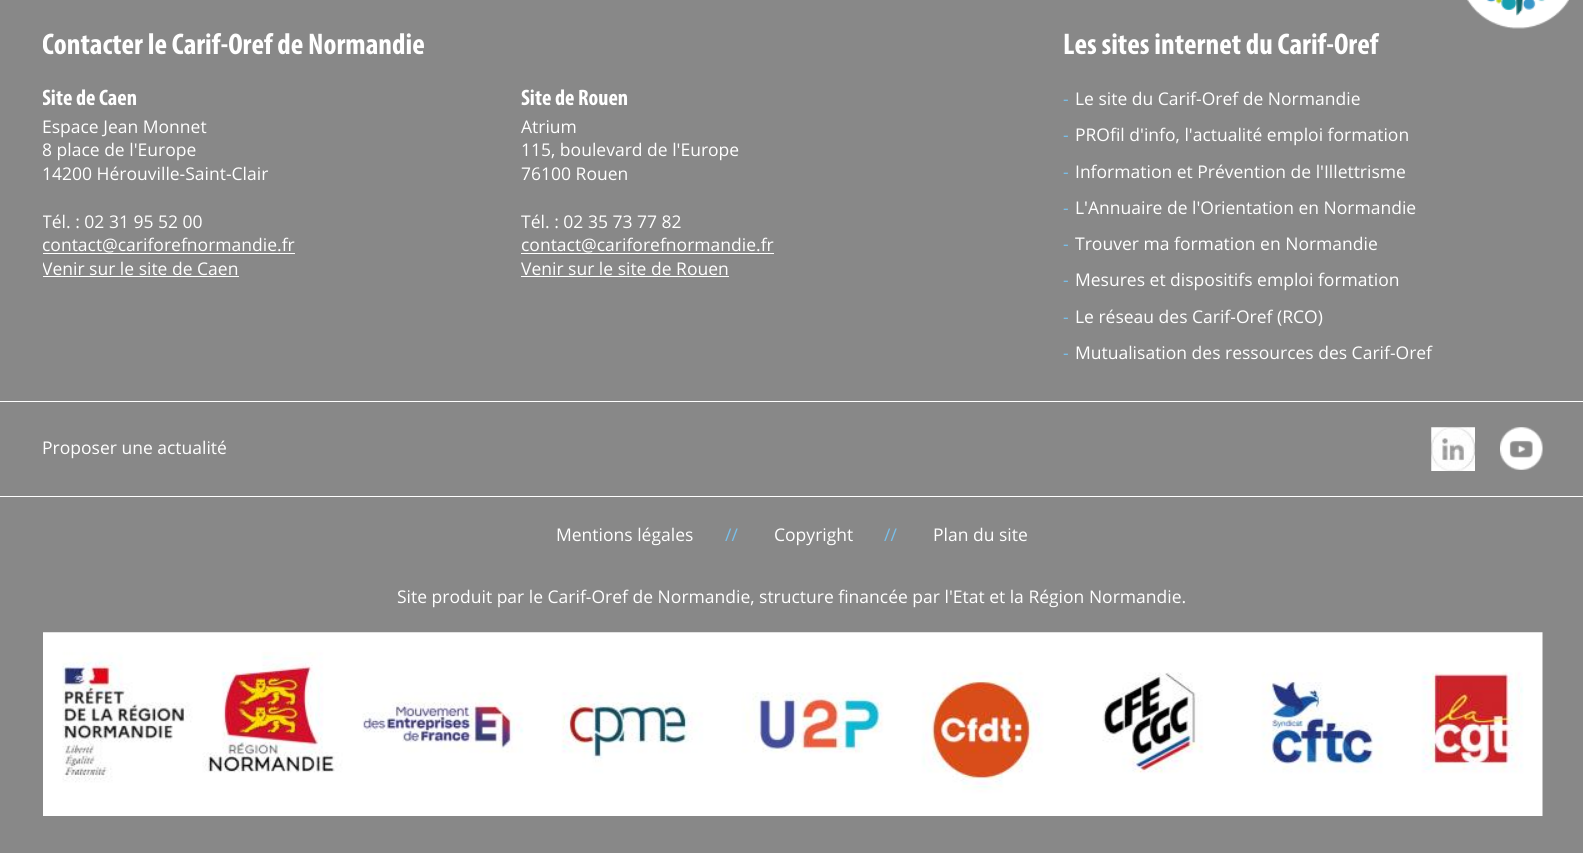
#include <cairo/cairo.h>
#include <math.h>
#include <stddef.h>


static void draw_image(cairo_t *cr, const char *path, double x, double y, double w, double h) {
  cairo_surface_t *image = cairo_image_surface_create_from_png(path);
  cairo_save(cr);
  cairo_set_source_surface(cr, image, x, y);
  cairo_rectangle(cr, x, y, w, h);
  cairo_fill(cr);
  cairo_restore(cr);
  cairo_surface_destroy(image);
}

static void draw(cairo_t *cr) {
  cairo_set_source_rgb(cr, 136 / 255.0, 136 / 255.0, 136 / 255.0);
  cairo_paint(cr);
  draw_image(cr, "images/1.png", 1467, 0, 102, 29);
  cairo_set_source_rgb(cr, 1, 1, 1);
  cairo_rectangle(cr, 43, 253, 252, 1);
  cairo_fill(cr);
  cairo_rectangle(cr, 43, 276, 196, 1);
  cairo_fill(cr);
  cairo_rectangle(cr, 521, 253, 253, 1);
  cairo_fill(cr);
  cairo_rectangle(cr, 521, 276, 208, 1);
  cairo_fill(cr);
  cairo_rectangle(cr, 0, 401, 1583, 1);
  cairo_fill(cr);
  cairo_rectangle(cr, 0, 496, 1583, 1);
  cairo_fill(cr);
  draw_image(cr, "images/2.png", 1431, 427, 44, 44);
  draw_image(cr, "images/3.png", 1500, 427, 43, 43);
  draw_image(cr, "images/4.png", 43, 632, 1500, 184);
  cairo_select_font_face(cr, "Myriad", CAIRO_FONT_SLANT_NORMAL, CAIRO_FONT_WEIGHT_BOLD);
  cairo_set_font_size(cr, 30);
  cairo_move_to(cr, 42, 54);
  cairo_show_text(cr, "Contacter le Carif-Oref de Normandie");
  cairo_set_font_size(cr, 22.5);
  cairo_move_to(cr, 42, 105);
  cairo_show_text(cr, "Site de Caen");
  cairo_select_font_face(cr, "Open Sans", CAIRO_FONT_SLANT_NORMAL, CAIRO_FONT_WEIGHT_NORMAL);
  cairo_set_font_size(cr, 17.5);
  cairo_move_to(cr, 42, 133);
  cairo_show_text(cr, "Espace Jean Monnet");
  cairo_move_to(cr, 42, 156);
  cairo_show_text(cr, "8 place de l'Europe");
  cairo_move_to(cr, 42, 180);
  cairo_show_text(cr, "14200 Hérouville-Saint-Clair");
  cairo_move_to(cr, 42, 228);
  cairo_show_text(cr, "Tél. : 02 31 95 52 00");
  cairo_move_to(cr, 42, 251);
  cairo_show_text(cr, "contact@cariforefnormandie.fr");
  cairo_move_to(cr, 42, 275);
  cairo_show_text(cr, "Venir sur le site de Caen");
  cairo_select_font_face(cr, "Myriad", CAIRO_FONT_SLANT_NORMAL, CAIRO_FONT_WEIGHT_BOLD);
  cairo_set_font_size(cr, 22.5);
  cairo_move_to(cr, 521, 105);
  cairo_show_text(cr, "Site de Rouen");
  cairo_select_font_face(cr, "Open Sans", CAIRO_FONT_SLANT_NORMAL, CAIRO_FONT_WEIGHT_NORMAL);
  cairo_set_font_size(cr, 17.5);
  cairo_move_to(cr, 521, 133);
  cairo_show_text(cr, "Atrium");
  cairo_move_to(cr, 521, 156);
  cairo_show_text(cr, "115, boulevard de l'Europe");
  cairo_move_to(cr, 521, 180);
  cairo_show_text(cr, "76100 Rouen");
  cairo_move_to(cr, 521, 228);
  cairo_show_text(cr, "Tél. : 02 35 73 77 82");
  cairo_move_to(cr, 521, 251);
  cairo_show_text(cr, "contact@cariforefnormandie.fr");
  cairo_move_to(cr, 521, 275);
  cairo_show_text(cr, "Venir sur le site de Rouen");
  cairo_select_font_face(cr, "Myriad", CAIRO_FONT_SLANT_NORMAL, CAIRO_FONT_WEIGHT_BOLD);
  cairo_set_font_size(cr, 30);
  cairo_move_to(cr, 1063, 54);
  cairo_show_text(cr, "Les sites internet du Carif-Oref");
  cairo_select_font_face(cr, "Open Sans", CAIRO_FONT_SLANT_NORMAL, CAIRO_FONT_WEIGHT_NORMAL);
  cairo_set_font_size(cr, 17.5);
  cairo_set_source_rgb(cr, 120 / 255.0, 192 / 255.0, 235 / 255.0);
  cairo_move_to(cr, 1063, 105);
  cairo_show_text(cr, "-");
  cairo_set_source_rgb(cr, 1, 1, 1);
  cairo_move_to(cr, 1075, 105);
  cairo_show_text(cr, "Le site du Carif-Oref de Normandie");
  cairo_set_source_rgb(cr, 120 / 255.0, 192 / 255.0, 235 / 255.0);
  cairo_move_to(cr, 1063, 141);
  cairo_show_text(cr, "-");
  cairo_set_source_rgb(cr, 1, 1, 1);
  cairo_move_to(cr, 1075, 141);
  cairo_show_text(cr, "PROfil d'info, l'actualité emploi formation");
  cairo_set_source_rgb(cr, 120 / 255.0, 192 / 255.0, 235 / 255.0);
  cairo_move_to(cr, 1063, 178);
  cairo_show_text(cr, "-");
  cairo_set_source_rgb(cr, 1, 1, 1);
  cairo_move_to(cr, 1075, 178);
  cairo_show_text(cr, "Information et Prévention de l'Illettrisme");
  cairo_set_source_rgb(cr, 120 / 255.0, 192 / 255.0, 235 / 255.0);
  cairo_move_to(cr, 1063, 214);
  cairo_show_text(cr, "-");
  cairo_set_source_rgb(cr, 1, 1, 1);
  cairo_move_to(cr, 1075, 214);
  cairo_show_text(cr, "L'Annuaire de l'Orientation en Normandie");
  cairo_set_source_rgb(cr, 120 / 255.0, 192 / 255.0, 235 / 255.0);
  cairo_move_to(cr, 1063, 250);
  cairo_show_text(cr, "-");
  cairo_set_source_rgb(cr, 1, 1, 1);
  cairo_move_to(cr, 1075, 250);
  cairo_show_text(cr, "Trouver ma formation en Normandie");
  cairo_set_source_rgb(cr, 120 / 255.0, 192 / 255.0, 235 / 255.0);
  cairo_move_to(cr, 1063, 286);
  cairo_show_text(cr, "-");
  cairo_set_source_rgb(cr, 1, 1, 1);
  cairo_move_to(cr, 1075, 286);
  cairo_show_text(cr, "Mesures et dispositifs emploi formation");
  cairo_set_source_rgb(cr, 120 / 255.0, 192 / 255.0, 235 / 255.0);
  cairo_move_to(cr, 1063, 323);
  cairo_show_text(cr, "-");
  cairo_set_source_rgb(cr, 1, 1, 1);
  cairo_move_to(cr, 1075, 323);
  cairo_show_text(cr, "Le réseau des Carif-Oref (RCO)");
  cairo_set_source_rgb(cr, 120 / 255.0, 192 / 255.0, 235 / 255.0);
  cairo_move_to(cr, 1063, 359);
  cairo_show_text(cr, "-");
  cairo_set_source_rgb(cr, 1, 1, 1);
  cairo_move_to(cr, 1075, 359);
  cairo_show_text(cr, "Mutualisation des ressources des Carif-Oref");
  cairo_set_source_rgb(cr, 136 / 255.0, 136 / 255.0, 136 / 255.0);
  cairo_rectangle(cr, 42, 41, 1, 225);
  cairo_fill(cr);
  cairo_set_source_rgb(cr, 1, 1, 1);
  cairo_move_to(cr, 42, 454);
  cairo_show_text(cr, "Proposer une actualité");
  cairo_move_to(cr, 556, 541);
  cairo_show_text(cr, "Mentions légales");
  cairo_set_source_rgb(cr, 120 / 255.0, 192 / 255.0, 235 / 255.0);
  cairo_move_to(cr, 725, 541);
  cairo_show_text(cr, "//");
  cairo_set_source_rgb(cr, 1, 1, 1);
  cairo_move_to(cr, 774, 541);
  cairo_show_text(cr, "Copyright");
  cairo_set_source_rgb(cr, 120 / 255.0, 192 / 255.0, 235 / 255.0);
  cairo_move_to(cr, 884, 541);
  cairo_show_text(cr, "//");
  cairo_set_source_rgb(cr, 1, 1, 1);
  cairo_move_to(cr, 933, 541);
  cairo_show_text(cr, "Plan du site");
  cairo_move_to(cr, 397, 603);
  cairo_show_text(cr, "Site produit par le Carif-Oref de Normandie, structure financée par l'Etat et la Région Normandie.");
}

int main(void) {
  cairo_surface_t *surface = cairo_image_surface_create(CAIRO_FORMAT_RGB24, 1583, 853);
  cairo_t *cr = cairo_create(surface);
  cairo_font_options_t *options = cairo_font_options_create();
  cairo_font_options_set_hint_metrics(options, CAIRO_HINT_METRICS_OFF);
  cairo_font_options_set_hint_style(options, CAIRO_HINT_STYLE_NONE);
  cairo_set_font_options(cr, options);
  cairo_set_miter_limit(cr, 4);
  draw(cr);
  cairo_surface_write_to_png(surface, "out.png");
  cairo_font_options_destroy(options);
  cairo_destroy(cr);
  cairo_surface_destroy(surface);
  return 0;
}
